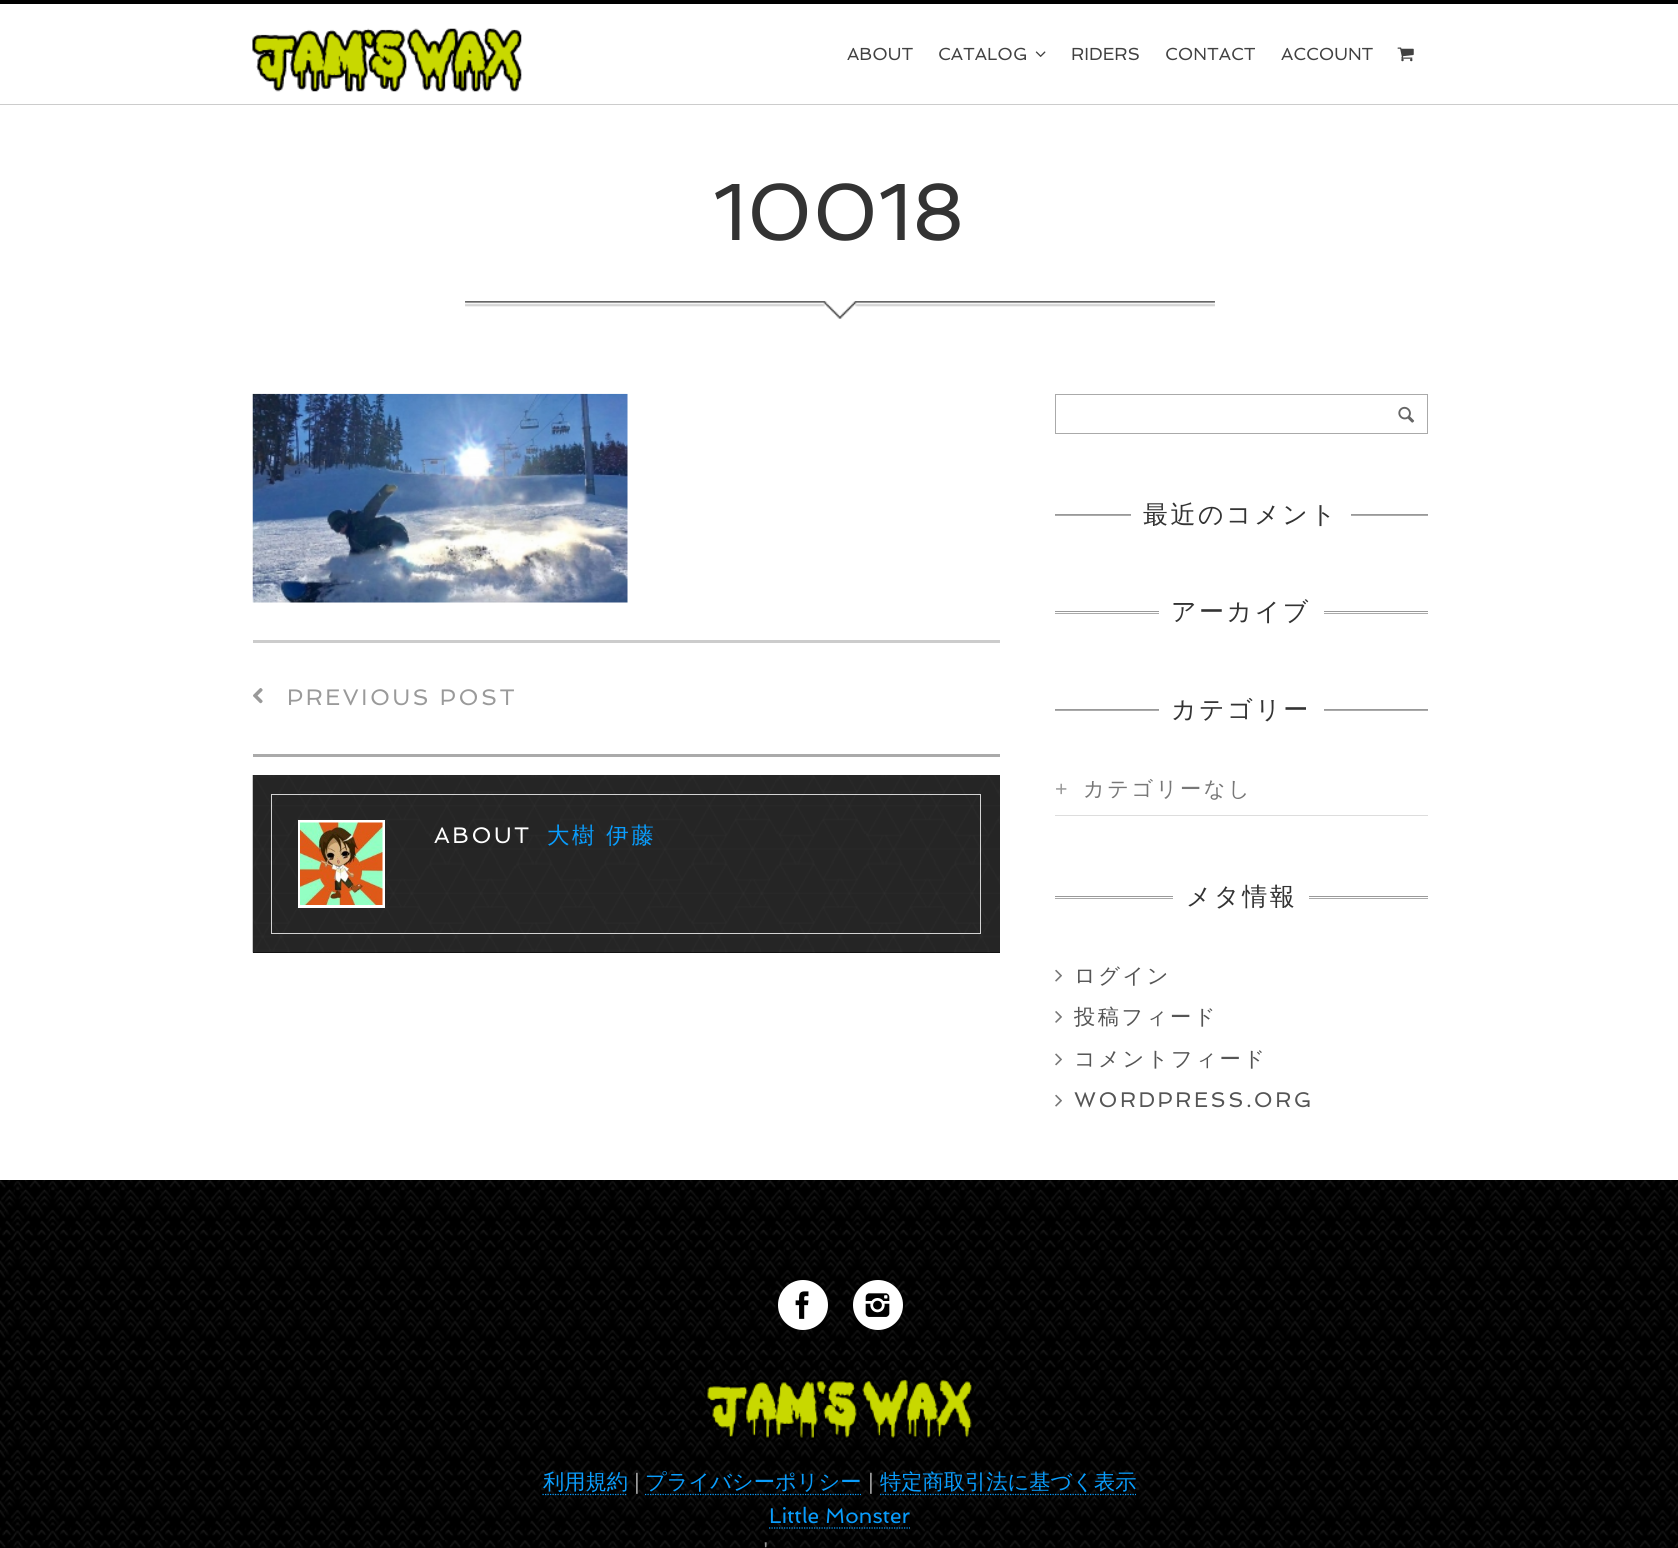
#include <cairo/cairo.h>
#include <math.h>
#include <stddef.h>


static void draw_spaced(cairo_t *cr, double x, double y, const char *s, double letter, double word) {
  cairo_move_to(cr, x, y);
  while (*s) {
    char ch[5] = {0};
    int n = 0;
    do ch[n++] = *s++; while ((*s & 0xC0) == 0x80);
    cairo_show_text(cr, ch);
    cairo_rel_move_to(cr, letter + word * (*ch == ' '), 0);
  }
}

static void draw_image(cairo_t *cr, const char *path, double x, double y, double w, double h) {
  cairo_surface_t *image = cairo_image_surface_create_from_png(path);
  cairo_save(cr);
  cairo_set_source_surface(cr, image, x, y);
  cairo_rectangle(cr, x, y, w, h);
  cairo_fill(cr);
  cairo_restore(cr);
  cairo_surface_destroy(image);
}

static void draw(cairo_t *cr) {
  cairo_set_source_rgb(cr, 1, 1, 1);
  cairo_paint(cr);
  cairo_set_source_rgb(cr, 0, 0, 0);
  cairo_rectangle(cr, 0, 0, 1678, 4);
  cairo_fill(cr);
  cairo_set_source_rgb(cr, 204 / 255.0, 204 / 255.0, 204 / 255.0);
  cairo_rectangle(cr, 0, 104, 1678, 1);
  cairo_fill(cr);
  draw_image(cr, "images/1.png", 252, 28, 270, 64);
  draw_image(cr, "images/2.png", 1035, 51, 11, 6);
  draw_image(cr, "images/3.png", 1397, 47, 17, 15);
  draw_image(cr, "images/4.png", 465, 301, 750, 18);
  draw_image(cr, "images/5.png", 252, 393, 376, 210);
  cairo_rectangle(cr, 253, 640, 747, 3);
  cairo_fill(cr);
  cairo_set_source_rgb(cr, 170 / 255.0, 170 / 255.0, 170 / 255.0);
  cairo_rectangle(cr, 253, 754, 747, 3);
  cairo_fill(cr);
  draw_image(cr, "images/6.png", 253, 688, 10, 16);
  cairo_set_source_rgb(cr, 0, 0, 0);
  cairo_rectangle(cr, 253, 952, 747, 1);
  cairo_fill(cr);
  draw_image(cr, "images/7.png", 252, 775, 748, 178);
  cairo_rectangle(cr, 271.5, 794.5, 709, 139);
  cairo_set_source_rgba(cr, 1, 1, 1, 0.8);
  cairo_set_line_width(cr, 1);
  cairo_stroke(cr);
  cairo_rectangle(cr, 299.5, 821.5, 84, 85);
  cairo_set_source_rgb(cr, 1, 1, 1);
  cairo_set_line_width(cr, 3);
  cairo_stroke(cr);
  draw_image(cr, "images/8.png", 300, 822, 83, 83);
  cairo_rectangle(cr, 1055.5, 394.5, 372, 39);
  cairo_set_source_rgb(cr, 170 / 255.0, 170 / 255.0, 170 / 255.0);
  cairo_set_line_width(cr, 1);
  cairo_stroke(cr);
  draw_image(cr, "images/9.png", 1398, 406, 17, 17);
  cairo_set_source_rgb(cr, 153 / 255.0, 153 / 255.0, 153 / 255.0);
  cairo_rectangle(cr, 1055, 514, 76, 1);
  cairo_fill(cr);
  cairo_set_source_rgb(cr, 170 / 255.0, 170 / 255.0, 170 / 255.0);
  cairo_rectangle(cr, 1055, 515, 76, 1);
  cairo_fill(cr);
  cairo_set_source_rgb(cr, 153 / 255.0, 153 / 255.0, 153 / 255.0);
  cairo_rectangle(cr, 1351, 514, 77, 1);
  cairo_fill(cr);
  cairo_set_source_rgb(cr, 170 / 255.0, 170 / 255.0, 170 / 255.0);
  cairo_rectangle(cr, 1351, 515, 77, 1);
  cairo_fill(cr);
  cairo_set_source_rgb(cr, 153 / 255.0, 153 / 255.0, 153 / 255.0);
  cairo_rectangle(cr, 1055, 611, 104, 1);
  cairo_fill(cr);
  cairo_set_source_rgb(cr, 170 / 255.0, 170 / 255.0, 170 / 255.0);
  cairo_rectangle(cr, 1055, 613, 104, 1);
  cairo_fill(cr);
  cairo_set_source_rgb(cr, 153 / 255.0, 153 / 255.0, 153 / 255.0);
  cairo_rectangle(cr, 1324, 611, 104, 1);
  cairo_fill(cr);
  cairo_set_source_rgb(cr, 170 / 255.0, 170 / 255.0, 170 / 255.0);
  cairo_rectangle(cr, 1324, 613, 104, 1);
  cairo_fill(cr);
  cairo_set_source_rgb(cr, 153 / 255.0, 153 / 255.0, 153 / 255.0);
  cairo_rectangle(cr, 1055, 709, 104, 1);
  cairo_fill(cr);
  cairo_set_source_rgb(cr, 170 / 255.0, 170 / 255.0, 170 / 255.0);
  cairo_rectangle(cr, 1055, 710, 104, 1);
  cairo_fill(cr);
  cairo_set_source_rgb(cr, 153 / 255.0, 153 / 255.0, 153 / 255.0);
  cairo_rectangle(cr, 1324, 709, 104, 1);
  cairo_fill(cr);
  cairo_set_source_rgb(cr, 170 / 255.0, 170 / 255.0, 170 / 255.0);
  cairo_rectangle(cr, 1324, 710, 104, 1);
  cairo_fill(cr);
  cairo_set_source_rgb(cr, 221 / 255.0, 221 / 255.0, 221 / 255.0);
  cairo_rectangle(cr, 1055, 815, 373, 1);
  cairo_fill(cr);
  cairo_set_source_rgb(cr, 153 / 255.0, 153 / 255.0, 153 / 255.0);
  cairo_rectangle(cr, 1055, 896, 118, 1);
  cairo_fill(cr);
  cairo_set_source_rgb(cr, 170 / 255.0, 170 / 255.0, 170 / 255.0);
  cairo_rectangle(cr, 1055, 898, 118, 1);
  cairo_fill(cr);
  cairo_set_source_rgb(cr, 153 / 255.0, 153 / 255.0, 153 / 255.0);
  cairo_rectangle(cr, 1309, 896, 119, 1);
  cairo_fill(cr);
  cairo_set_source_rgb(cr, 170 / 255.0, 170 / 255.0, 170 / 255.0);
  cairo_rectangle(cr, 1309, 898, 119, 1);
  cairo_fill(cr);
  draw_image(cr, "images/10.png", 1055, 969, 7, 13);
  draw_image(cr, "images/11.png", 1055, 1011, 7, 12);
  draw_image(cr, "images/12.png", 1055, 1053, 7, 13);
  draw_image(cr, "images/10.png", 1055, 1094, 7, 13);
  draw_image(cr, "images/13.png", 0, 1180, 1678, 368);
  cairo_set_source_rgb(cr, 1, 1, 1);
  cairo_arc(cr, 803, 1305, 25, 0, 2 * M_PI);
  cairo_fill(cr);
  draw_image(cr, "images/14.png", 795, 1291, 14, 28);
  cairo_arc(cr, 878, 1305, 25, 0, 2 * M_PI);
  cairo_fill(cr);
  draw_image(cr, "images/15.png", 865, 1293, 25, 24);
  draw_image(cr, "images/16.png", 705, 1377, 269, 63);
  cairo_new_path(cr);
  cairo_move_to(cr, 542.5, 1494.5);
  cairo_line_to(cr, 627.5, 1494.5);
  cairo_set_source_rgb(cr, 9 / 255.0, 157 / 255.0, 253 / 255.0);
  cairo_set_line_width(cr, 1.2);
  cairo_set_dash(cr, (double[]){1.25, 1.25}, 2, 0);
  cairo_stroke(cr);
  cairo_new_path(cr);
  cairo_move_to(cr, 645, 1494.5);
  cairo_line_to(cr, 861, 1494.5);
  cairo_stroke(cr);
  cairo_new_path(cr);
  cairo_move_to(cr, 880, 1494.5);
  cairo_line_to(cr, 1136, 1494.5);
  cairo_stroke(cr);
  cairo_new_path(cr);
  cairo_move_to(cr, 769, 1528);
  cairo_line_to(cr, 910, 1528);
  cairo_stroke(cr);
  cairo_select_font_face(cr, "Spinnaker", CAIRO_FONT_SLANT_NORMAL, CAIRO_FONT_WEIGHT_NORMAL);
  cairo_set_font_size(cr, 17.5);
  cairo_set_source_rgb(cr, 65 / 255.0, 65 / 255.0, 65 / 255.0);
  cairo_move_to(cr, 847, 60);
  cairo_show_text(cr, "ABOUT");
  cairo_move_to(cr, 938, 60);
  cairo_show_text(cr, "CATALOG");
  cairo_move_to(cr, 1071, 60);
  cairo_show_text(cr, "RIDERS");
  cairo_move_to(cr, 1165, 60);
  cairo_show_text(cr, "CONTACT");
  cairo_move_to(cr, 1281, 60);
  cairo_show_text(cr, "ACCOUNT");
  cairo_set_font_size(cr, 81);
  cairo_set_source_rgb(cr, 51 / 255.0, 51 / 255.0, 51 / 255.0);
  cairo_move_to(cr, 713, 240);
  cairo_show_text(cr, "10018");
  cairo_set_font_size(cr, 22.5);
  cairo_set_source_rgb(cr, 154 / 255.0, 154 / 255.0, 154 / 255.0);
  draw_spaced(cr, 287, 705, "PREVIOUS POST", 2.5, 0);
  cairo_set_source_rgb(cr, 1, 1, 1);
  draw_spaced(cr, 434, 843, "ABOUT", 2.5, 0);
  cairo_select_font_face(cr, "WenQuanYi Zen Hei Medium", CAIRO_FONT_SLANT_NORMAL, CAIRO_FONT_WEIGHT_NORMAL);
  cairo_set_source_rgb(cr, 9 / 255.0, 157 / 255.0, 253 / 255.0);
  draw_spaced(cr, 547, 843, "大樹 伊藤", 2.5, 0);
  cairo_set_font_size(cr, 25);
  cairo_set_source_rgb(cr, 51 / 255.0, 51 / 255.0, 51 / 255.0);
  draw_spaced(cr, 1143, 523, "最近のコメント", 2.5, 0);
  draw_spaced(cr, 1171, 620, "アーカイブ", 2.5, 0);
  draw_spaced(cr, 1171, 718, "カテゴリー", 2.5, 0);
  cairo_select_font_face(cr, "Liberation Sans", CAIRO_FONT_SLANT_NORMAL, CAIRO_FONT_WEIGHT_NORMAL);
  cairo_set_font_size(cr, 21.25);
  cairo_set_source_rgb(cr, 154 / 255.0, 154 / 255.0, 154 / 255.0);
  draw_spaced(cr, 1055, 796, "+", 2.5, 0);
  cairo_select_font_face(cr, "WenQuanYi Zen Hei Medium", CAIRO_FONT_SLANT_NORMAL, CAIRO_FONT_WEIGHT_NORMAL);
  cairo_set_source_rgb(cr, 119 / 255.0, 119 / 255.0, 119 / 255.0);
  draw_spaced(cr, 1083, 796, "カテゴリーなし", 2.5, 0);
  cairo_set_font_size(cr, 25);
  cairo_set_source_rgb(cr, 51 / 255.0, 51 / 255.0, 51 / 255.0);
  draw_spaced(cr, 1186, 905, "メタ情報", 2.5, 0);
  cairo_set_font_size(cr, 21.25);
  cairo_set_source_rgb(cr, 85 / 255.0, 85 / 255.0, 85 / 255.0);
  draw_spaced(cr, 1074, 983, "ログイン", 2.5, 0);
  draw_spaced(cr, 1074, 1024, "投稿フィード", 2.5, 0);
  draw_spaced(cr, 1074, 1066, "コメントフィード", 2.5, 0);
  cairo_select_font_face(cr, "Spinnaker", CAIRO_FONT_SLANT_NORMAL, CAIRO_FONT_WEIGHT_NORMAL);
  draw_spaced(cr, 1074, 1107, "WORDPRESS.ORG", 2.5, 0);
  cairo_select_font_face(cr, "WenQuanYi Zen Hei Medium", CAIRO_FONT_SLANT_NORMAL, CAIRO_FONT_WEIGHT_NORMAL);
  cairo_set_source_rgb(cr, 9 / 255.0, 157 / 255.0, 253 / 255.0);
  cairo_move_to(cr, 543, 1489);
  cairo_show_text(cr, "利用規約");
  cairo_select_font_face(cr, "Spinnaker", CAIRO_FONT_SLANT_NORMAL, CAIRO_FONT_WEIGHT_NORMAL);
  cairo_set_source_rgb(cr, 154 / 255.0, 154 / 255.0, 154 / 255.0);
  cairo_move_to(cr, 634, 1489);
  cairo_show_text(cr, "|");
  cairo_select_font_face(cr, "WenQuanYi Zen Hei Medium", CAIRO_FONT_SLANT_NORMAL, CAIRO_FONT_WEIGHT_NORMAL);
  cairo_set_source_rgb(cr, 9 / 255.0, 157 / 255.0, 253 / 255.0);
  cairo_move_to(cr, 645, 1489);
  cairo_show_text(cr, "プライバシーポリシー");
  cairo_select_font_face(cr, "Spinnaker", CAIRO_FONT_SLANT_NORMAL, CAIRO_FONT_WEIGHT_NORMAL);
  cairo_set_source_rgb(cr, 154 / 255.0, 154 / 255.0, 154 / 255.0);
  cairo_move_to(cr, 868, 1489);
  cairo_show_text(cr, "|");
  cairo_select_font_face(cr, "WenQuanYi Zen Hei Medium", CAIRO_FONT_SLANT_NORMAL, CAIRO_FONT_WEIGHT_NORMAL);
  cairo_set_source_rgb(cr, 9 / 255.0, 157 / 255.0, 253 / 255.0);
  cairo_move_to(cr, 880, 1489);
  cairo_show_text(cr, "特定商取引法に基づく表示");
  cairo_select_font_face(cr, "Spinnaker", CAIRO_FONT_SLANT_NORMAL, CAIRO_FONT_WEIGHT_NORMAL);
  cairo_move_to(cr, 769, 1523);
  cairo_show_text(cr, "Little Monster");
  cairo_set_source_rgb(cr, 154 / 255.0, 154 / 255.0, 154 / 255.0);
  cairo_move_to(cr, 763, 1557);
  cairo_show_text(cr, "'");
}

int main(void) {
  cairo_surface_t *surface = cairo_image_surface_create(CAIRO_FORMAT_RGB24, 1678, 1548);
  cairo_t *cr = cairo_create(surface);
  cairo_font_options_t *options = cairo_font_options_create();
  cairo_font_options_set_hint_metrics(options, CAIRO_HINT_METRICS_OFF);
  cairo_font_options_set_hint_style(options, CAIRO_HINT_STYLE_NONE);
  cairo_set_font_options(cr, options);
  cairo_set_miter_limit(cr, 4);
  draw(cr);
  cairo_surface_write_to_png(surface, "out.png");
  cairo_font_options_destroy(options);
  cairo_destroy(cr);
  cairo_surface_destroy(surface);
  return 0;
}
